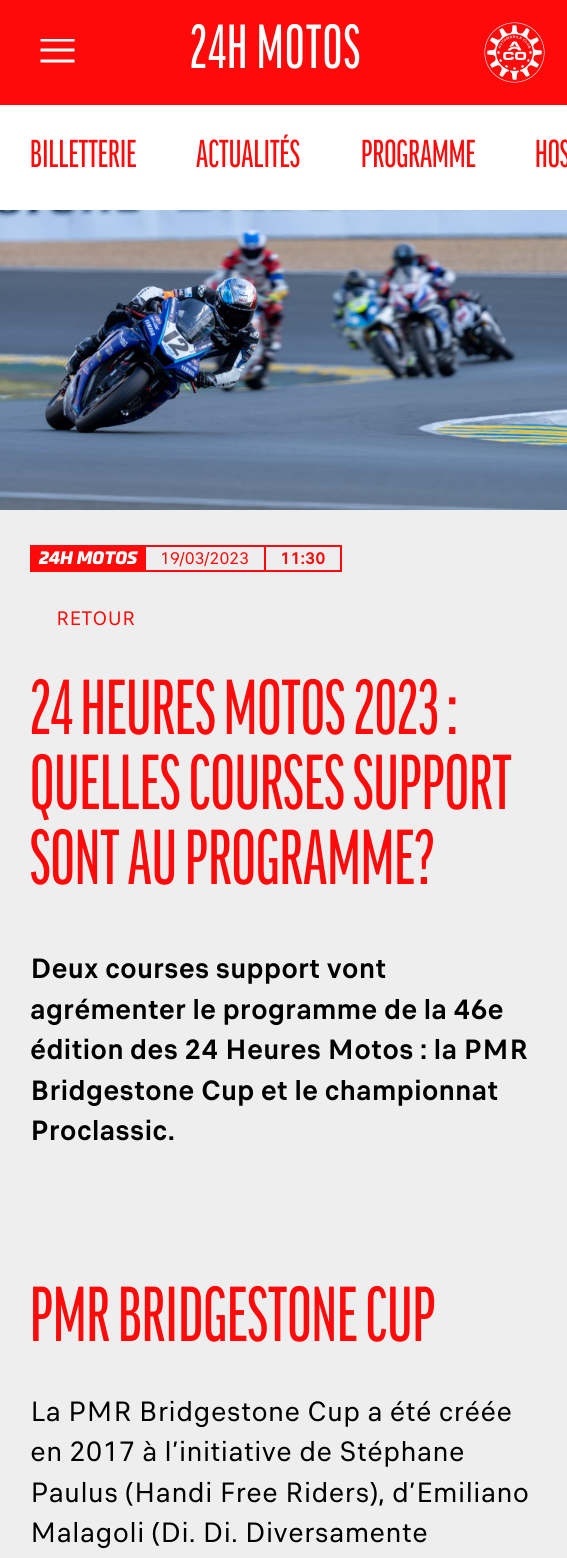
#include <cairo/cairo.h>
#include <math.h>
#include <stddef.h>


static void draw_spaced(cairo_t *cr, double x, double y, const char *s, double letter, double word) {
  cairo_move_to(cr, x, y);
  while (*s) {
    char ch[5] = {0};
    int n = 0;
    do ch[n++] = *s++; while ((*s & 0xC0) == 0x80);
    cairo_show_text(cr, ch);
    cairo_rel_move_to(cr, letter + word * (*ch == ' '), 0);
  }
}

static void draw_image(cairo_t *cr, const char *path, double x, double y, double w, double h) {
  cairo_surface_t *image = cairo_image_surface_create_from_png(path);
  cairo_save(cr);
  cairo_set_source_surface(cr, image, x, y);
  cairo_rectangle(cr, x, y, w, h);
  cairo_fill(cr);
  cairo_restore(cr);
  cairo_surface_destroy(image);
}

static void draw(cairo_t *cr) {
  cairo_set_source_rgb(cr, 1, 1, 1);
  cairo_paint(cr);
  cairo_set_source_rgb(cr, 254 / 255.0, 10 / 255.0, 11 / 255.0);
  cairo_rectangle(cr, 0, 0, 567, 105);
  cairo_fill(cr);
  cairo_new_path(cr);
  cairo_move_to(cr, 40.5, 50);
  cairo_line_to(cr, 74.5, 50);
  cairo_set_source_rgb(cr, 1, 1, 1);
  cairo_set_line_width(cr, 3);
  cairo_stroke(cr);
  cairo_save(cr);
  cairo_rectangle(cr, 23, 39, 75, 27);
  cairo_clip(cr);
  cairo_new_path(cr);
  cairo_move_to(cr, 40.5, 40);
  cairo_line_to(cr, 74.5, 40);
  cairo_stroke(cr);
  cairo_restore(cr);
  cairo_new_path(cr);
  cairo_move_to(cr, 40.5, 61);
  cairo_line_to(cr, 74.5, 61);
  cairo_stroke(cr);
  draw_image(cr, "images/1.png", 484, 22, 61, 61);
  draw_image(cr, "images/2.png", 0, 210, 567, 300);
  cairo_set_source_rgb(cr, 238 / 255.0, 238 / 255.0, 238 / 255.0);
  cairo_rectangle(cr, 0, 510, 567, 1048);
  cairo_fill(cr);
  cairo_rectangle(cr, 31, 546, 310, 25);
  cairo_set_source_rgb(cr, 254 / 255.0, 10 / 255.0, 11 / 255.0);
  cairo_set_line_width(cr, 2);
  cairo_stroke(cr);
  cairo_rectangle(cr, 32, 547, 114, 23);
  cairo_fill(cr);
  cairo_rectangle(cr, 264, 546, 2, 24);
  cairo_fill(cr);
  cairo_select_font_face(cr, "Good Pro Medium", CAIRO_FONT_SLANT_NORMAL, CAIRO_FONT_WEIGHT_NORMAL);
  cairo_set_font_size(cr, 60);
  cairo_set_source_rgb(cr, 1, 1, 1);
  draw_spaced(cr, 190, 68, "24H MOTOS", 1.5, 0);
  cairo_set_font_size(cr, 37.5);
  cairo_set_source_rgb(cr, 254 / 255.0, 10 / 255.0, 11 / 255.0);
  cairo_move_to(cr, 30, 167);
  cairo_show_text(cr, "BILLETTERIE");
  cairo_move_to(cr, 196, 167);
  cairo_show_text(cr, "ACTUALITÉS");
  cairo_move_to(cr, 361, 167);
  cairo_show_text(cr, "PROGRAMME");
  cairo_move_to(cr, 535, 167);
  cairo_show_text(cr, "HOS");
  cairo_select_font_face(cr, "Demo", CAIRO_FONT_SLANT_ITALIC, CAIRO_FONT_WEIGHT_BOLD);
  cairo_set_font_size(cr, 18);
  cairo_set_source_rgb(cr, 1, 1, 1);
  cairo_move_to(cr, 39, 564);
  cairo_show_text(cr, "24H MOTOS");
  cairo_select_font_face(cr, "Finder", CAIRO_FONT_SLANT_NORMAL, CAIRO_FONT_WEIGHT_NORMAL);
  cairo_set_source_rgb(cr, 254 / 255.0, 10 / 255.0, 11 / 255.0);
  cairo_move_to(cr, 160, 564);
  cairo_show_text(cr, "19/03/2023");
  cairo_select_font_face(cr, "Finder", CAIRO_FONT_SLANT_NORMAL, CAIRO_FONT_WEIGHT_BOLD);
  cairo_move_to(cr, 280, 564);
  cairo_show_text(cr, "11:30");
  cairo_select_font_face(cr, "Finder", CAIRO_FONT_SLANT_NORMAL, CAIRO_FONT_WEIGHT_NORMAL);
  cairo_set_font_size(cr, 21);
  cairo_move_to(cr, 56, 625);
  cairo_show_text(cr, "RETOUR");
  cairo_select_font_face(cr, "Good Pro Medium", CAIRO_FONT_SLANT_NORMAL, CAIRO_FONT_WEIGHT_NORMAL);
  cairo_set_font_size(cr, 75);
  cairo_move_to(cr, 30, 734);
  cairo_show_text(cr, "24 HEURES MOTOS 2023 :");
  cairo_move_to(cr, 30, 809);
  cairo_show_text(cr, "QUELLES COURSES SUPPORT");
  cairo_move_to(cr, 30, 884);
  cairo_show_text(cr, "SONT AU PROGRAMME?");
  cairo_select_font_face(cr, "Finder", CAIRO_FONT_SLANT_NORMAL, CAIRO_FONT_WEIGHT_BOLD);
  cairo_set_font_size(cr, 30);
  cairo_set_source_rgb(cr, 0, 0, 0);
  cairo_move_to(cr, 30, 978);
  cairo_show_text(cr, "Deux courses support vont");
  cairo_move_to(cr, 30, 1019);
  cairo_show_text(cr, "agrémenter le programme de la 46e");
  cairo_move_to(cr, 30, 1059);
  cairo_show_text(cr, "édition des 24 Heures Motos : la PMR");
  cairo_move_to(cr, 30, 1100);
  cairo_show_text(cr, "Bridgestone Cup et le championnat");
  cairo_move_to(cr, 30, 1140);
  cairo_show_text(cr, "Proclassic.");
  cairo_select_font_face(cr, "Good Pro Medium", CAIRO_FONT_SLANT_NORMAL, CAIRO_FONT_WEIGHT_NORMAL);
  cairo_set_font_size(cr, 75);
  cairo_set_source_rgb(cr, 254 / 255.0, 10 / 255.0, 11 / 255.0);
  cairo_move_to(cr, 30, 1341);
  cairo_show_text(cr, "PMR BRIDGESTONE CUP");
  cairo_select_font_face(cr, "Finder", CAIRO_FONT_SLANT_NORMAL, CAIRO_FONT_WEIGHT_NORMAL);
  cairo_set_font_size(cr, 30);
  cairo_set_source_rgb(cr, 0, 0, 0);
  cairo_move_to(cr, 30, 1421);
  cairo_show_text(cr, "La PMR Bridgestone Cup a été créée");
  cairo_move_to(cr, 30, 1461);
  cairo_show_text(cr, "en 2017 à l’initiative de Stéphane");
  cairo_move_to(cr, 30, 1502);
  cairo_show_text(cr, "Paulus (Handi Free Riders), d’Emiliano");
  cairo_move_to(cr, 30, 1542);
  cairo_show_text(cr, "Malagoli (Di. Di. Diversamente");
}

int main(void) {
  cairo_surface_t *surface = cairo_image_surface_create(CAIRO_FORMAT_RGB24, 567, 1558);
  cairo_t *cr = cairo_create(surface);
  cairo_font_options_t *options = cairo_font_options_create();
  cairo_font_options_set_hint_metrics(options, CAIRO_HINT_METRICS_OFF);
  cairo_font_options_set_hint_style(options, CAIRO_HINT_STYLE_NONE);
  cairo_set_font_options(cr, options);
  cairo_set_miter_limit(cr, 4);
  draw(cr);
  cairo_surface_write_to_png(surface, "out.png");
  cairo_font_options_destroy(options);
  cairo_destroy(cr);
  cairo_surface_destroy(surface);
  return 0;
}
